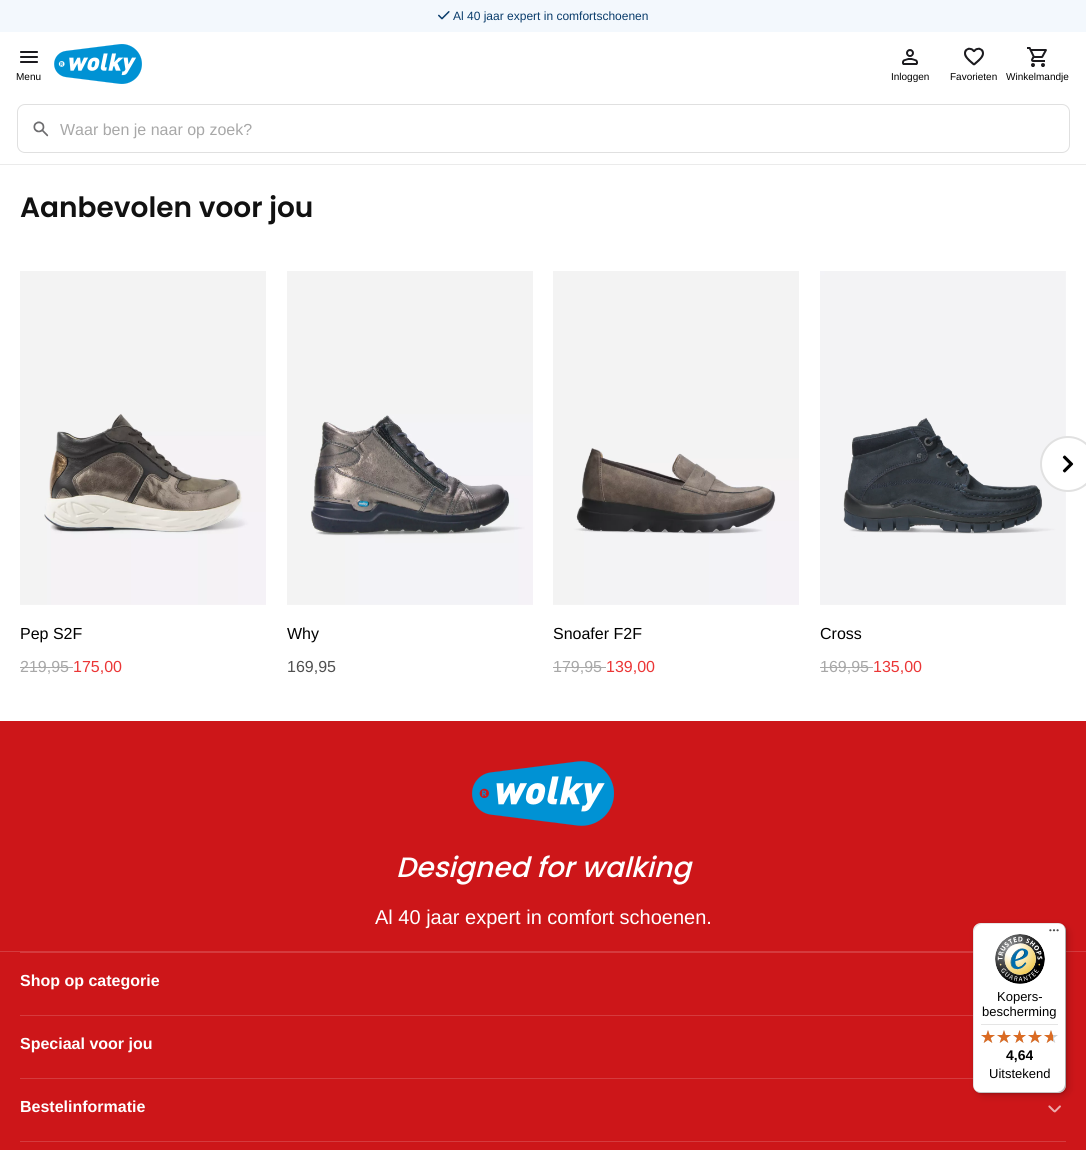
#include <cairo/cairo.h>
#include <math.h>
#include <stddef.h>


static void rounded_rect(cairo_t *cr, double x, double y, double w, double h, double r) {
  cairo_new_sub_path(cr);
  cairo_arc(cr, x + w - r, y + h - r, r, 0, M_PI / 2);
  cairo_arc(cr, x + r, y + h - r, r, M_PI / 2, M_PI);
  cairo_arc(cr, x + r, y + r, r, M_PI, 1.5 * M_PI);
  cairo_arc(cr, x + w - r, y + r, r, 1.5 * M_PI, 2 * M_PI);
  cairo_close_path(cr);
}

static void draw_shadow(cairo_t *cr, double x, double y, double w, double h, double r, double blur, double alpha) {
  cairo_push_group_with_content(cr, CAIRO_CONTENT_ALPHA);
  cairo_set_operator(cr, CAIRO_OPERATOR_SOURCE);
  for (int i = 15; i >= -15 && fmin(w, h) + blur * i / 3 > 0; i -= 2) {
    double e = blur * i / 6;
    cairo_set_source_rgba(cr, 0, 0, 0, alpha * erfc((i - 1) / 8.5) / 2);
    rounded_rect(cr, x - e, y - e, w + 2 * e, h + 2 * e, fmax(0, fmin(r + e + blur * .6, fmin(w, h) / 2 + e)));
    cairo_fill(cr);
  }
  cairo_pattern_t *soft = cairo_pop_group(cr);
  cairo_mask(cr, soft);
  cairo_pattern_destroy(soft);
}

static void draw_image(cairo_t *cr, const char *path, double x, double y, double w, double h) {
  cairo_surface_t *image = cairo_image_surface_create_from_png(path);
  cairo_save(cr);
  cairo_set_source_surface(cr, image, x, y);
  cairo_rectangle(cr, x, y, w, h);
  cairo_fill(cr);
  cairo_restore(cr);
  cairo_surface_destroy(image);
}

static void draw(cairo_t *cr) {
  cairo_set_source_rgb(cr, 1, 1, 1);
  cairo_paint(cr);
  cairo_set_source_rgb(cr, 243 / 255.0, 248 / 255.0, 253 / 255.0);
  cairo_rectangle(cr, 0, 0, 1086, 32);
  cairo_fill(cr);
  draw_image(cr, "images/1.png", 438, 11, 12, 9);
  draw_image(cr, "images/2.png", 20, 51, 18, 12);
  draw_image(cr, "images/3.png", 54, 44, 88, 40);
  draw_image(cr, "images/4.png", 902, 49, 16, 16);
  draw_image(cr, "images/5.png", 964, 47, 20, 19);
  draw_image(cr, "images/6.png", 1027, 47, 20, 20);
  cairo_set_source_rgb(cr, 235 / 255.0, 235 / 255.0, 235 / 255.0);
  cairo_rectangle(cr, 0, 164, 1086, 1);
  cairo_fill(cr);
  rounded_rect(cr, 17.5, 104.5, 1052, 48, 7.5);
  cairo_set_source_rgb(cr, 224 / 255.0, 224 / 255.0, 224 / 255.0);
  cairo_set_line_width(cr, 1);
  cairo_stroke(cr);
  draw_image(cr, "images/7.png", 33, 121, 16, 16);
  draw_image(cr, "images/12.png", 820, 271, 246, 334);
  cairo_set_source_rgb(cr, 1, 1, 1);
  cairo_arc(cr, 1068, 464, 27, 0, 2 * M_PI);
  cairo_fill_preserve(cr);
  cairo_set_source_rgb(cr, 225 / 255.0, 225 / 255.0, 225 / 255.0);
  cairo_set_line_width(cr, 2);
  cairo_stroke(cr);
  draw_image(cr, "images/8.png", 1062, 455, 12, 18);
  draw_image(cr, "images/9.png", 20, 271, 246, 334);
  cairo_set_source_rgb(cr, 168 / 255.0, 168 / 255.0, 168 / 255.0);
  cairo_rectangle(cr, 20, 667, 53, 1);
  cairo_fill(cr);
  draw_image(cr, "images/10.png", 287, 271, 246, 334);
  draw_image(cr, "images/11.png", 553, 271, 246, 334);
  cairo_rectangle(cr, 553, 667, 53, 1);
  cairo_fill(cr);
  cairo_rectangle(cr, 820, 667, 53, 1);
  cairo_fill(cr);
  cairo_set_source_rgb(cr, 205 / 255.0, 22 / 255.0, 25 / 255.0);
  cairo_rectangle(cr, 0, 721, 1086, 429);
  cairo_fill(cr);
  draw_image(cr, "images/13.png", 472, 761, 142, 65);
  cairo_set_source_rgb(cr, 213 / 255.0, 59 / 255.0, 62 / 255.0);
  cairo_rectangle(cr, 0, 951, 1086, 1);
  cairo_fill(cr);
  cairo_rectangle(cr, 20, 952, 953, 1);
  cairo_fill(cr);
  cairo_rectangle(cr, 20, 1015, 953, 1);
  cairo_fill(cr);
  cairo_rectangle(cr, 20, 1078, 953, 1);
  cairo_fill(cr);
  draw_image(cr, "images/14.png", 1048, 1105, 13, 8);
  cairo_rectangle(cr, 20, 1141, 1046, 1);
  cairo_fill(cr);
  cairo_set_source_rgb(cr, 0, 0, 0);
  draw_shadow(cr, 976, 926, 93, 170, 8, 4, 0.15);
  draw_shadow(cr, 974, 924, 93, 170, 8, 1, 0.15);
  cairo_set_source_rgb(cr, 1, 1, 1);
  rounded_rect(cr, 973, 923, 93, 170, 8);
  cairo_fill(cr);
  cairo_set_source_rgba(cr, 0, 0, 0, 0.1);
  cairo_new_path(cr);
  cairo_move_to(cr, 982, 924);
  cairo_line_to(cr, 1059, 924);
  cairo_curve_to(cr, 1061, 924, 1063, 925, 1065, 927);
  cairo_curve_to(cr, 1063, 925, 1061, 923, 1058, 923);
  cairo_line_to(cr, 981, 923);
  cairo_curve_to(cr, 977, 923, 973, 927, 973, 931);
  cairo_line_to(cr, 973, 1085);
  cairo_curve_to(cr, 973, 1088, 975, 1090, 977, 1092);
  cairo_curve_to(cr, 975, 1090, 974, 1088, 974, 1086);
  cairo_line_to(cr, 974, 932);
  cairo_curve_to(cr, 974, 928, 978, 924, 982, 924);
  cairo_close_path(cr);
  cairo_fill(cr);
  cairo_set_source_rgba(cr, 0, 0, 0, 0.2);
  cairo_new_path(cr);
  cairo_move_to(cr, 974, 1089);
  cairo_curve_to(cr, 976, 1091, 978, 1093, 981, 1093);
  cairo_line_to(cr, 1058, 1093);
  cairo_curve_to(cr, 1062, 1093, 1066, 1089, 1066, 1085);
  cairo_line_to(cr, 1066, 931);
  cairo_curve_to(cr, 1066, 928, 1064, 926, 1062, 924);
  cairo_curve_to(cr, 1064, 926, 1065, 928, 1065, 930);
  cairo_line_to(cr, 1065, 1084);
  cairo_curve_to(cr, 1065, 1088, 1061, 1092, 1057, 1092);
  cairo_line_to(cr, 980, 1092);
  cairo_curve_to(cr, 978, 1092, 976, 1091, 974, 1089);
  cairo_close_path(cr);
  cairo_fill(cr);
  cairo_set_source_rgba(cr, 50 / 255.0, 50 / 255.0, 50 / 255.0, 0.2);
  cairo_new_path(cr);
  cairo_move_to(cr, 975, 1090);
  cairo_curve_to(cr, 976, 1092, 979, 1093, 981, 1093);
  cairo_line_to(cr, 1058, 1093);
  cairo_curve_to(cr, 1062, 1093, 1066, 1089, 1066, 1085);
  cairo_line_to(cr, 1066, 931);
  cairo_curve_to(cr, 1066, 929, 1065, 926, 1063, 925);
  cairo_curve_to(cr, 1064, 926, 1065, 928, 1065, 930);
  cairo_line_to(cr, 1065, 1084);
  cairo_curve_to(cr, 1065, 1089, 1062, 1092, 1057, 1092);
  cairo_line_to(cr, 980, 1092);
  cairo_curve_to(cr, 978, 1092, 976, 1091, 975, 1090);
  cairo_close_path(cr);
  cairo_fill(cr);
  draw_image(cr, "images/15.png", 1049, 929, 10, 3);
  cairo_set_source_rgba(cr, 1, 1, 1, 0.3);
  cairo_new_path(cr);
  cairo_move_to(cr, 975, 1090);
  cairo_curve_to(cr, 976, 1092, 979, 1093, 981, 1093);
  cairo_line_to(cr, 1058, 1093);
  cairo_curve_to(cr, 1062, 1093, 1066, 1089, 1066, 1085);
  cairo_line_to(cr, 1066, 1084);
  cairo_curve_to(cr, 1066, 1089, 1062, 1092, 1058, 1092);
  cairo_line_to(cr, 980, 1092);
  cairo_curve_to(cr, 978, 1092, 976, 1091, 975, 1090);
  cairo_close_path(cr);
  cairo_fill(cr);
  draw_image(cr, "images/16.png", 995, 934, 50, 50);
  cairo_set_source_rgb(cr, 229 / 255.0, 229 / 255.0, 229 / 255.0);
  cairo_rectangle(cr, 981, 1024, 77, 1);
  cairo_fill(cr);
  draw_image(cr, "images/17.png", 981, 1030, 14, 13);
  draw_image(cr, "images/17.png", 997, 1030, 14, 13);
  draw_image(cr, "images/18.png", 1013, 1030, 13, 13);
  draw_image(cr, "images/17.png", 1028, 1030, 14, 13);
  draw_image(cr, "images/17.png", 1044, 1030, 14, 13);
  draw_image(cr, "images/19.png", 981, 1030, 14, 13);
  draw_image(cr, "images/19.png", 997, 1030, 14, 13);
  draw_image(cr, "images/20.png", 1013, 1030, 13, 13);
  draw_image(cr, "images/19.png", 1028, 1030, 14, 13);
  draw_image(cr, "images/21.png", 1044, 1030, 9, 13);
  cairo_select_font_face(cr, "Liberation Sans", CAIRO_FONT_SLANT_NORMAL, CAIRO_FONT_WEIGHT_NORMAL);
  cairo_set_font_size(cr, 12);
  cairo_set_source_rgb(cr, 9 / 255.0, 60 / 255.0, 107 / 255.0);
  cairo_move_to(cr, 453, 20);
  cairo_show_text(cr, "Al 40 jaar expert in comfortschoenen");
  cairo_set_font_size(cr, 10);
  cairo_set_source_rgb(cr, 0, 0, 0);
  cairo_move_to(cr, 16, 80);
  cairo_show_text(cr, "Menu");
  cairo_move_to(cr, 891, 80);
  cairo_show_text(cr, "Inloggen");
  cairo_move_to(cr, 950, 80);
  cairo_show_text(cr, "Favorieten");
  cairo_move_to(cr, 1006, 80);
  cairo_show_text(cr, "Winkelmandje");
  cairo_set_font_size(cr, 16);
  cairo_set_source_rgb(cr, 168 / 255.0, 168 / 255.0, 168 / 255.0);
  cairo_move_to(cr, 60, 135);
  cairo_show_text(cr, "Waar ben je naar op zoek?");
  cairo_select_font_face(cr, "Poppins SemiBold", CAIRO_FONT_SLANT_NORMAL, CAIRO_FONT_WEIGHT_NORMAL);
  cairo_set_font_size(cr, 28);
  cairo_set_source_rgb(cr, 17 / 255.0, 17 / 255.0, 17 / 255.0);
  cairo_move_to(cr, 20, 217);
  cairo_show_text(cr, "Aanbevolen voor jou");
  cairo_select_font_face(cr, "Liberation Sans", CAIRO_FONT_SLANT_NORMAL, CAIRO_FONT_WEIGHT_NORMAL);
  cairo_set_font_size(cr, 16);
  cairo_set_source_rgb(cr, 0, 0, 0);
  cairo_move_to(cr, 20, 639);
  cairo_show_text(cr, "Pep S2F");
  cairo_set_source_rgb(cr, 168 / 255.0, 168 / 255.0, 168 / 255.0);
  cairo_move_to(cr, 20, 672);
  cairo_show_text(cr, "219,95");
  cairo_set_source_rgb(cr, 235 / 255.0, 54 / 255.0, 54 / 255.0);
  cairo_move_to(cr, 73, 672);
  cairo_show_text(cr, "175,00");
  cairo_set_source_rgb(cr, 0, 0, 0);
  cairo_move_to(cr, 287, 639);
  cairo_show_text(cr, "Why");
  cairo_set_source_rgb(cr, 80 / 255.0, 80 / 255.0, 80 / 255.0);
  cairo_move_to(cr, 287, 672);
  cairo_show_text(cr, "169,95");
  cairo_set_source_rgb(cr, 0, 0, 0);
  cairo_move_to(cr, 553, 639);
  cairo_show_text(cr, "Snoafer F2F");
  cairo_set_source_rgb(cr, 168 / 255.0, 168 / 255.0, 168 / 255.0);
  cairo_move_to(cr, 553, 672);
  cairo_show_text(cr, "179,95");
  cairo_set_source_rgb(cr, 235 / 255.0, 54 / 255.0, 54 / 255.0);
  cairo_move_to(cr, 606, 672);
  cairo_show_text(cr, "139,00");
  cairo_set_source_rgb(cr, 0, 0, 0);
  cairo_move_to(cr, 820, 639);
  cairo_show_text(cr, "Cross");
  cairo_set_source_rgb(cr, 168 / 255.0, 168 / 255.0, 168 / 255.0);
  cairo_move_to(cr, 820, 672);
  cairo_show_text(cr, "169,95");
  cairo_set_source_rgb(cr, 235 / 255.0, 54 / 255.0, 54 / 255.0);
  cairo_move_to(cr, 873, 672);
  cairo_show_text(cr, "135,00");
  cairo_select_font_face(cr, "Poppins Medium", CAIRO_FONT_SLANT_ITALIC, CAIRO_FONT_WEIGHT_NORMAL);
  cairo_set_font_size(cr, 28);
  cairo_set_source_rgb(cr, 1, 1, 1);
  cairo_move_to(cr, 396, 877);
  cairo_show_text(cr, "Designed for walking");
  cairo_select_font_face(cr, "Liberation Sans", CAIRO_FONT_SLANT_NORMAL, CAIRO_FONT_WEIGHT_NORMAL);
  cairo_set_font_size(cr, 20);
  cairo_move_to(cr, 375, 924);
  cairo_show_text(cr, "Al 40 jaar expert in comfort schoenen.");
  cairo_select_font_face(cr, "Liberation Sans", CAIRO_FONT_SLANT_NORMAL, CAIRO_FONT_WEIGHT_BOLD);
  cairo_set_font_size(cr, 16);
  cairo_move_to(cr, 20, 986);
  cairo_show_text(cr, "Shop op categorie");
  cairo_move_to(cr, 20, 1049);
  cairo_show_text(cr, "Speciaal voor jou");
  cairo_move_to(cr, 20, 1112);
  cairo_show_text(cr, "Bestelinformatie");
  cairo_select_font_face(cr, "Liberation Sans", CAIRO_FONT_SLANT_NORMAL, CAIRO_FONT_WEIGHT_NORMAL);
  cairo_set_font_size(cr, 13);
  cairo_set_source_rgb(cr, 0, 0, 0);
  cairo_move_to(cr, 997, 1001);
  cairo_show_text(cr, "Kopers-");
  cairo_move_to(cr, 982, 1016);
  cairo_show_text(cr, "bescherming");
  cairo_select_font_face(cr, "Liberation Sans", CAIRO_FONT_SLANT_NORMAL, CAIRO_FONT_WEIGHT_BOLD);
  cairo_set_font_size(cr, 14);
  cairo_move_to(cr, 1006, 1060);
  cairo_show_text(cr, "4,64");
  cairo_select_font_face(cr, "Liberation Sans", CAIRO_FONT_SLANT_NORMAL, CAIRO_FONT_WEIGHT_NORMAL);
  cairo_set_font_size(cr, 13);
  cairo_move_to(cr, 989, 1078);
  cairo_show_text(cr, "Uitstekend");
}

int main(void) {
  cairo_surface_t *surface = cairo_image_surface_create(CAIRO_FORMAT_RGB24, 1086, 1150);
  cairo_t *cr = cairo_create(surface);
  cairo_font_options_t *options = cairo_font_options_create();
  cairo_font_options_set_hint_metrics(options, CAIRO_HINT_METRICS_OFF);
  cairo_font_options_set_hint_style(options, CAIRO_HINT_STYLE_NONE);
  cairo_set_font_options(cr, options);
  cairo_set_miter_limit(cr, 4);
  draw(cr);
  cairo_surface_write_to_png(surface, "out.png");
  cairo_font_options_destroy(options);
  cairo_destroy(cr);
  cairo_surface_destroy(surface);
  return 0;
}
